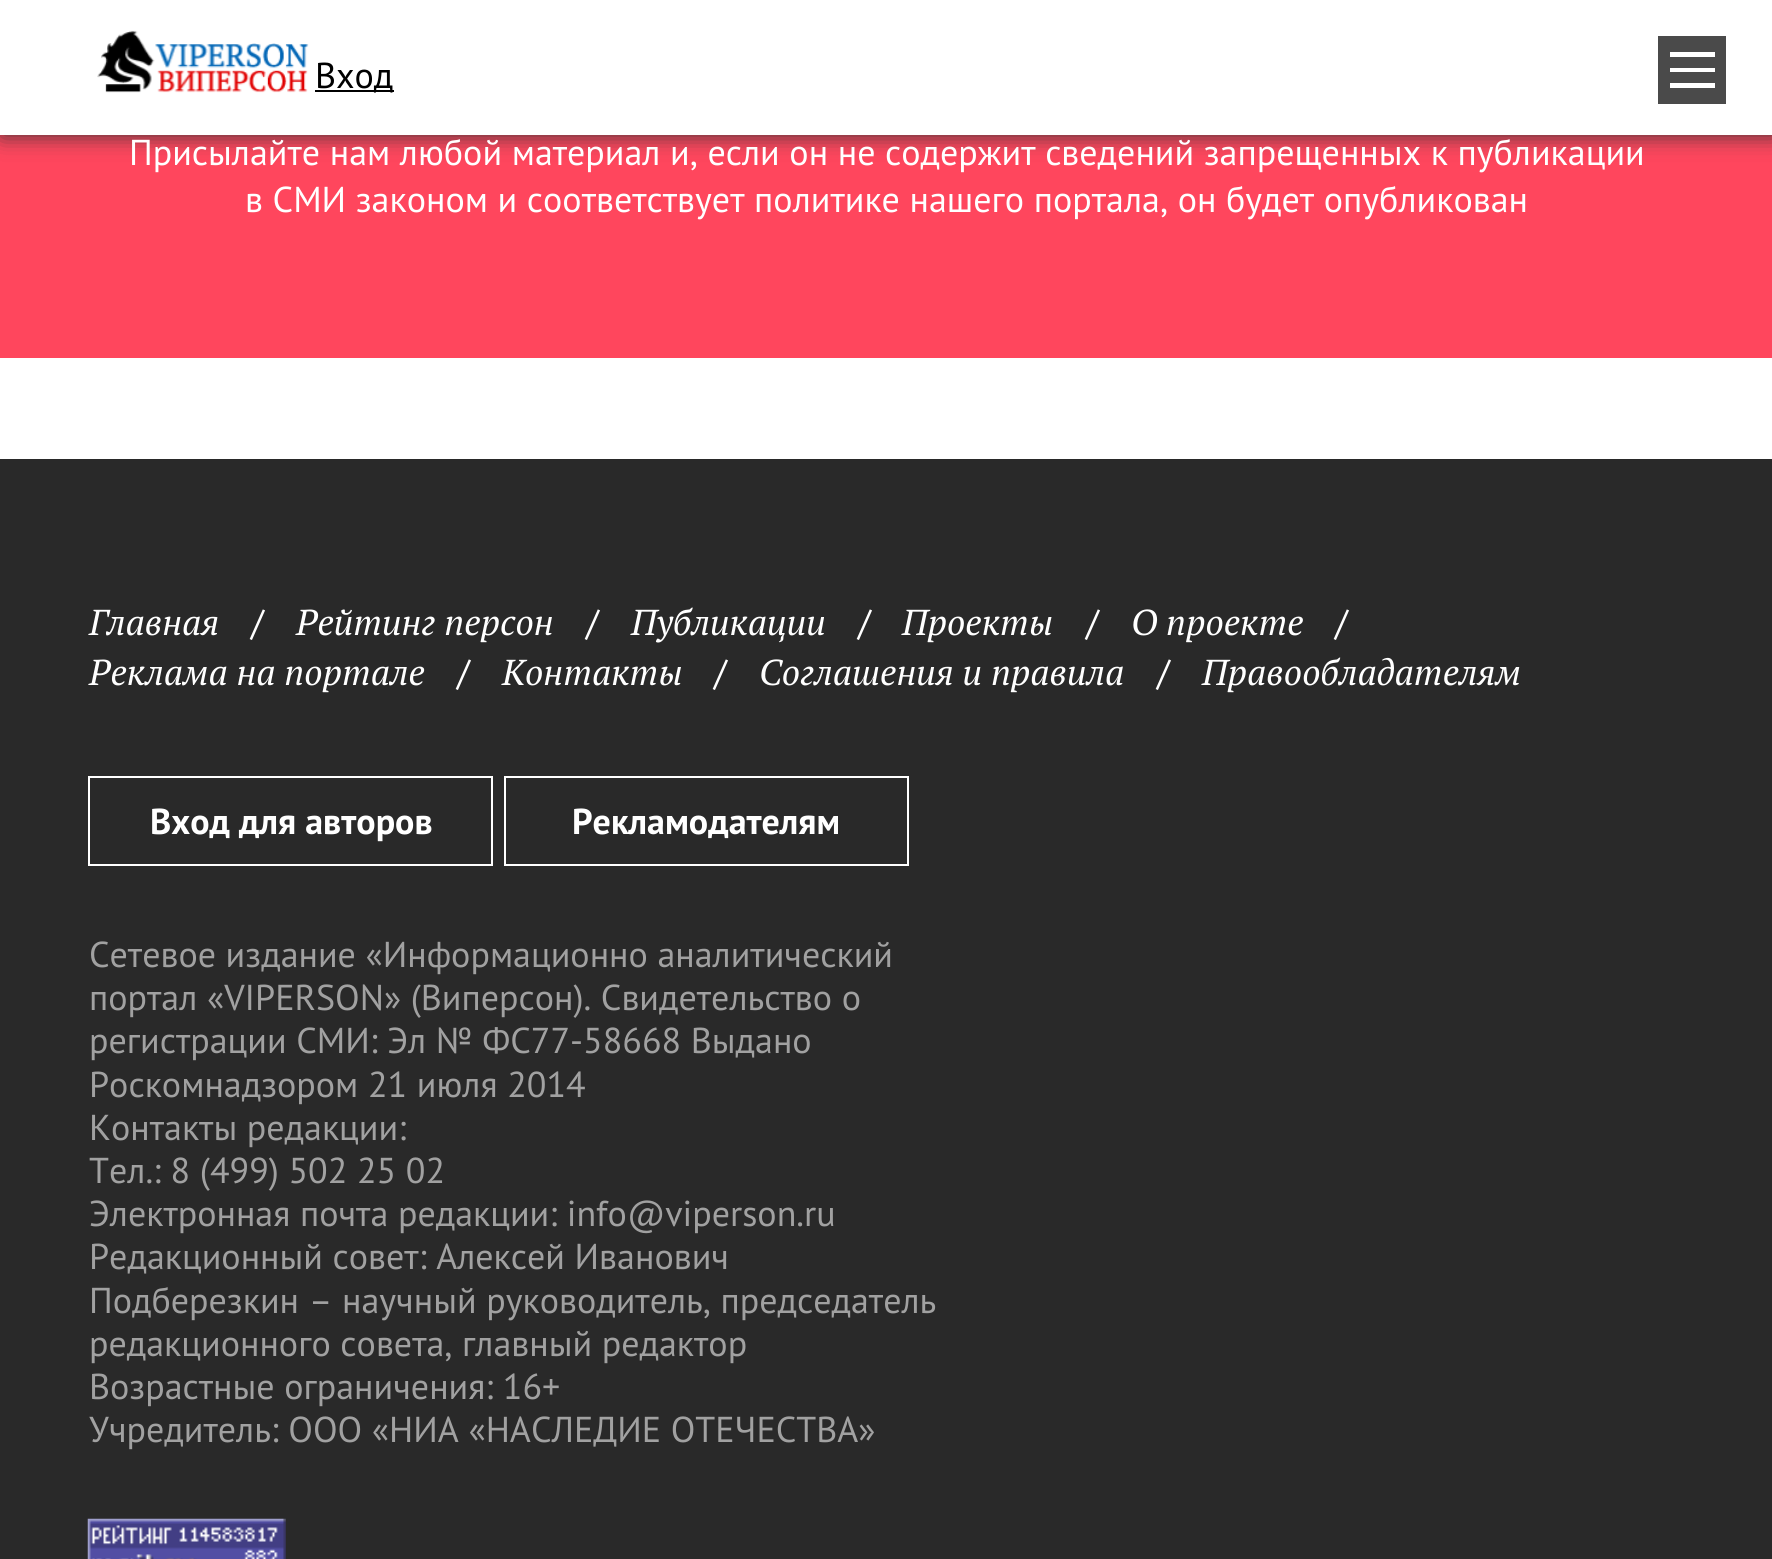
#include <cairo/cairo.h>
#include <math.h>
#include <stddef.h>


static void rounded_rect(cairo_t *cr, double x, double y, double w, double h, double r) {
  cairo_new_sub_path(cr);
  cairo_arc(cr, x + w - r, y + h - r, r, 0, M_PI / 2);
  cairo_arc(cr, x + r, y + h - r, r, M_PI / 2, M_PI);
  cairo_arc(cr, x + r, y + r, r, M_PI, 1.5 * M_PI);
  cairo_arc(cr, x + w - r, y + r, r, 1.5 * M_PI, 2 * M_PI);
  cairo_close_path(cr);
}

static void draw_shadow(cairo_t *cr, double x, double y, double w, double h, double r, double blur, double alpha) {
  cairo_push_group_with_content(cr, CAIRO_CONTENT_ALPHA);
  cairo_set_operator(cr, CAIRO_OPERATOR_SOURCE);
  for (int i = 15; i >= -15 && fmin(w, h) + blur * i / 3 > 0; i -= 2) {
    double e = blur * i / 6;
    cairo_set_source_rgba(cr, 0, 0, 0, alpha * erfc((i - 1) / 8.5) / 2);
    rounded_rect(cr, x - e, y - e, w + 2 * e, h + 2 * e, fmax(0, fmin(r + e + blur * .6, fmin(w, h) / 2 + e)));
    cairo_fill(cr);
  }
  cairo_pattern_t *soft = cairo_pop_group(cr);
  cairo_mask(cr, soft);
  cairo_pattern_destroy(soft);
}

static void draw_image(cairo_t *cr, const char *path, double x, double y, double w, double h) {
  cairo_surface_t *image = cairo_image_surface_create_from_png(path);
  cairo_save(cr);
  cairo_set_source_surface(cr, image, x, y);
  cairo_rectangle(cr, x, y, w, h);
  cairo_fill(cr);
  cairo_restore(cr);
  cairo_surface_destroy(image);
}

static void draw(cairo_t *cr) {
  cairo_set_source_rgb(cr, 1, 1, 1);
  cairo_paint(cr);
  cairo_set_source_rgb(cr, 1, 70 / 255.0, 93 / 255.0);
  cairo_rectangle(cr, 0, 135, 1772, 223);
  cairo_fill(cr);
  cairo_set_source_rgb(cr, 51 / 255.0, 51 / 255.0, 51 / 255.0);
  draw_shadow(cr, 2, 0, 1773, 135, 0, 11, 1);
  cairo_set_source_rgb(cr, 1, 1, 1);
  cairo_rectangle(cr, 0, 0, 1772, 135);
  cairo_fill(cr);
  draw_image(cr, "images/1.png", 97, 30, 212, 63);
  cairo_set_source_rgb(cr, 74 / 255.0, 74 / 255.0, 74 / 255.0);
  cairo_rectangle(cr, 1658, 36, 68, 68);
  cairo_fill(cr);
  cairo_set_source_rgb(cr, 1, 1, 1);
  cairo_rectangle(cr, 1670, 52, 45, 5);
  cairo_fill(cr);
  cairo_rectangle(cr, 1670, 83, 45, 5);
  cairo_fill(cr);
  cairo_rectangle(cr, 1670, 68, 45, 4);
  cairo_fill(cr);
  cairo_set_source_rgb(cr, 0, 0, 0);
  cairo_rectangle(cr, 315, 90, 79, 2);
  cairo_fill(cr);
  cairo_set_source_rgb(cr, 41 / 255.0, 41 / 255.0, 41 / 255.0);
  cairo_rectangle(cr, 0, 459, 1772, 1100);
  cairo_fill(cr);
  cairo_rectangle(cr, 89, 777, 403, 88);
  cairo_set_source_rgb(cr, 1, 1, 1);
  cairo_stroke(cr);
  cairo_rectangle(cr, 505, 777, 403, 88);
  cairo_stroke(cr);
  draw_image(cr, "images/2.png", 87, 1518, 199, 41);
  cairo_select_font_face(cr, "PT Sans", CAIRO_FONT_SLANT_NORMAL, CAIRO_FONT_WEIGHT_NORMAL);
  cairo_set_font_size(cr, 36);
  cairo_set_source_rgb(cr, 0, 0, 0);
  cairo_move_to(cr, 315, 88);
  cairo_show_text(cr, "Вход");
  cairo_set_source_rgb(cr, 1, 1, 1);
  cairo_move_to(cr, 129, 165);
  cairo_show_text(cr, "Присылайте нам любой материал и, если он не содержит сведений запрещенных к публикации");
  cairo_move_to(cr, 245, 212);
  cairo_show_text(cr, "в СМИ законом и соответствует политике нашего портала, он будет опубликован");
  cairo_select_font_face(cr, "PT Serif", CAIRO_FONT_SLANT_ITALIC, CAIRO_FONT_WEIGHT_NORMAL);
  cairo_move_to(cr, 89, 635);
  cairo_show_text(cr, "Главная");
  cairo_select_font_face(cr, "PT Sans", CAIRO_FONT_SLANT_NORMAL, CAIRO_FONT_WEIGHT_NORMAL);
  cairo_move_to(cr, 251, 635);
  cairo_show_text(cr, "/");
  cairo_select_font_face(cr, "PT Serif", CAIRO_FONT_SLANT_ITALIC, CAIRO_FONT_WEIGHT_NORMAL);
  cairo_move_to(cr, 296, 635);
  cairo_show_text(cr, "Рейтинг персон");
  cairo_select_font_face(cr, "PT Sans", CAIRO_FONT_SLANT_NORMAL, CAIRO_FONT_WEIGHT_NORMAL);
  cairo_move_to(cr, 586, 635);
  cairo_show_text(cr, "/");
  cairo_select_font_face(cr, "PT Serif", CAIRO_FONT_SLANT_ITALIC, CAIRO_FONT_WEIGHT_NORMAL);
  cairo_move_to(cr, 631, 635);
  cairo_show_text(cr, "Публикации");
  cairo_select_font_face(cr, "PT Sans", CAIRO_FONT_SLANT_NORMAL, CAIRO_FONT_WEIGHT_NORMAL);
  cairo_move_to(cr, 858, 635);
  cairo_show_text(cr, "/");
  cairo_select_font_face(cr, "PT Serif", CAIRO_FONT_SLANT_ITALIC, CAIRO_FONT_WEIGHT_NORMAL);
  cairo_move_to(cr, 902, 635);
  cairo_show_text(cr, "Проекты");
  cairo_select_font_face(cr, "PT Sans", CAIRO_FONT_SLANT_NORMAL, CAIRO_FONT_WEIGHT_NORMAL);
  cairo_move_to(cr, 1086, 635);
  cairo_show_text(cr, "/");
  cairo_select_font_face(cr, "PT Serif", CAIRO_FONT_SLANT_ITALIC, CAIRO_FONT_WEIGHT_NORMAL);
  cairo_move_to(cr, 1131, 635);
  cairo_show_text(cr, "О проекте");
  cairo_select_font_face(cr, "PT Sans", CAIRO_FONT_SLANT_NORMAL, CAIRO_FONT_WEIGHT_NORMAL);
  cairo_move_to(cr, 1335, 635);
  cairo_show_text(cr, "/");
  cairo_select_font_face(cr, "PT Serif", CAIRO_FONT_SLANT_ITALIC, CAIRO_FONT_WEIGHT_NORMAL);
  cairo_move_to(cr, 89, 685);
  cairo_show_text(cr, "Реклама на портале");
  cairo_select_font_face(cr, "PT Sans", CAIRO_FONT_SLANT_NORMAL, CAIRO_FONT_WEIGHT_NORMAL);
  cairo_move_to(cr, 457, 685);
  cairo_show_text(cr, "/");
  cairo_select_font_face(cr, "PT Serif", CAIRO_FONT_SLANT_ITALIC, CAIRO_FONT_WEIGHT_NORMAL);
  cairo_move_to(cr, 502, 685);
  cairo_show_text(cr, "Контакты");
  cairo_select_font_face(cr, "PT Sans", CAIRO_FONT_SLANT_NORMAL, CAIRO_FONT_WEIGHT_NORMAL);
  cairo_move_to(cr, 714, 685);
  cairo_show_text(cr, "/");
  cairo_select_font_face(cr, "PT Serif", CAIRO_FONT_SLANT_ITALIC, CAIRO_FONT_WEIGHT_NORMAL);
  cairo_move_to(cr, 759, 685);
  cairo_show_text(cr, "Соглашения и правила");
  cairo_select_font_face(cr, "PT Sans", CAIRO_FONT_SLANT_NORMAL, CAIRO_FONT_WEIGHT_NORMAL);
  cairo_move_to(cr, 1157, 685);
  cairo_show_text(cr, "/");
  cairo_select_font_face(cr, "PT Serif", CAIRO_FONT_SLANT_ITALIC, CAIRO_FONT_WEIGHT_NORMAL);
  cairo_move_to(cr, 1202, 685);
  cairo_show_text(cr, "Правообладателям");
  cairo_select_font_face(cr, "PT Sans", CAIRO_FONT_SLANT_NORMAL, CAIRO_FONT_WEIGHT_BOLD);
  cairo_move_to(cr, 150, 834);
  cairo_show_text(cr, "Вход для авторов");
  cairo_move_to(cr, 572, 834);
  cairo_show_text(cr, "Рекламодателям");
  cairo_select_font_face(cr, "PT Sans", CAIRO_FONT_SLANT_NORMAL, CAIRO_FONT_WEIGHT_NORMAL);
  cairo_set_source_rgb(cr, 161 / 255.0, 161 / 255.0, 161 / 255.0);
  cairo_move_to(cr, 89, 967);
  cairo_show_text(cr, "Сетевое издание «Информационно аналитический");
  cairo_move_to(cr, 89, 1010);
  cairo_show_text(cr, "портал «VIPERSON» (Виперсон). Свидетельство о");
  cairo_move_to(cr, 89, 1053);
  cairo_show_text(cr, "регистрации СМИ: Эл № ФС77-58668 Выдано");
  cairo_move_to(cr, 89, 1097);
  cairo_show_text(cr, "Роскомнадзором 21 июля 2014");
  cairo_move_to(cr, 89, 1140);
  cairo_show_text(cr, "Контакты редакции:");
  cairo_move_to(cr, 89, 1183);
  cairo_show_text(cr, "Тел.: 8 (499) 502 25 02");
  cairo_move_to(cr, 89, 1226);
  cairo_show_text(cr, "Электронная почта редакции: info@viperson.ru");
  cairo_move_to(cr, 89, 1269);
  cairo_show_text(cr, "Редакционный совет: Алексей Иванович");
  cairo_move_to(cr, 89, 1313);
  cairo_show_text(cr, "Подберезкин – научный руководитель, председатель");
  cairo_move_to(cr, 89, 1356);
  cairo_show_text(cr, "редакционного совета, главный редактор");
  cairo_move_to(cr, 89, 1399);
  cairo_show_text(cr, "Возрастные ограничения: 16+");
  cairo_move_to(cr, 89, 1442);
  cairo_show_text(cr, "Учредитель: ООО «НИА «НАСЛЕДИЕ ОТЕЧЕСТВА»");
}

int main(void) {
  cairo_surface_t *surface = cairo_image_surface_create(CAIRO_FORMAT_RGB24, 1772, 1559);
  cairo_t *cr = cairo_create(surface);
  cairo_font_options_t *options = cairo_font_options_create();
  cairo_font_options_set_hint_metrics(options, CAIRO_HINT_METRICS_OFF);
  cairo_font_options_set_hint_style(options, CAIRO_HINT_STYLE_NONE);
  cairo_set_font_options(cr, options);
  cairo_set_miter_limit(cr, 4);
  draw(cr);
  cairo_surface_write_to_png(surface, "out.png");
  cairo_font_options_destroy(options);
  cairo_destroy(cr);
  cairo_surface_destroy(surface);
  return 0;
}
